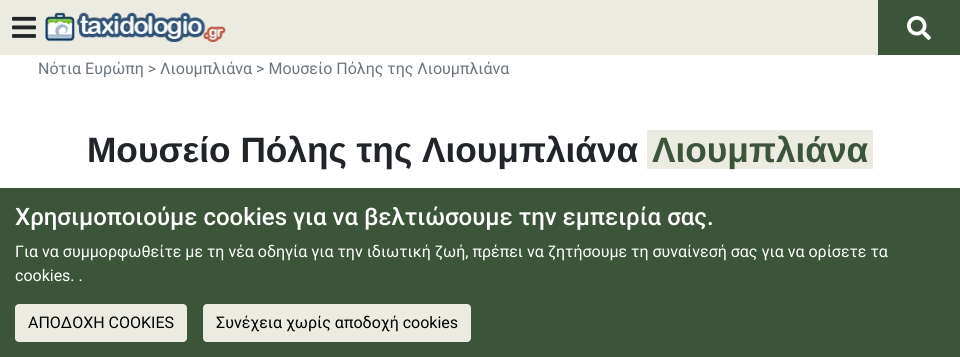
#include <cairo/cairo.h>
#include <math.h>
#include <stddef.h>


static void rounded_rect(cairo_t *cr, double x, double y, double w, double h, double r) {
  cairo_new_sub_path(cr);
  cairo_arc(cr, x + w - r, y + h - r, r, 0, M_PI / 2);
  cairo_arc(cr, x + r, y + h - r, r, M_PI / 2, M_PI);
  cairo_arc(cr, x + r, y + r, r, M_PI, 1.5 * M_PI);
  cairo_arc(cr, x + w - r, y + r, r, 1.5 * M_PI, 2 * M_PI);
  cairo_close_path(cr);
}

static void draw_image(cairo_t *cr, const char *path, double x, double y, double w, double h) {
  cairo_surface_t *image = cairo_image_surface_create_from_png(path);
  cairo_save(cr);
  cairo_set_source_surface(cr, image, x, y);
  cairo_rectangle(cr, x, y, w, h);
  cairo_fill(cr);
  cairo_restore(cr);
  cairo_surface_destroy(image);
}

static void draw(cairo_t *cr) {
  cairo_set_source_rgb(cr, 1, 1, 1);
  cairo_paint(cr);
  cairo_set_source_rgb(cr, 236 / 255.0, 235 / 255.0, 225 / 255.0);
  cairo_rectangle(cr, 0, 0, 878, 55);
  cairo_fill(cr);
  draw_image(cr, "images/1.png", 12, 16, 24, 22);
  draw_image(cr, "images/2.png", 45, 12, 181, 30);
  cairo_set_source_rgb(cr, 60 / 255.0, 85 / 255.0, 58 / 255.0);
  cairo_rectangle(cr, 878, 0, 82, 55);
  cairo_fill(cr);
  draw_image(cr, "images/3.png", 907, 16, 24, 24);
  cairo_set_source_rgb(cr, 236 / 255.0, 235 / 255.0, 225 / 255.0);
  cairo_rectangle(cr, 647, 130, 226, 39);
  cairo_fill(cr);
  cairo_set_source_rgb(cr, 60 / 255.0, 85 / 255.0, 58 / 255.0);
  cairo_rectangle(cr, 0, 188, 960, 169);
  cairo_fill(cr);
  cairo_set_source_rgb(cr, 236 / 255.0, 235 / 255.0, 225 / 255.0);
  rounded_rect(cr, 15.5, 304.5, 171, 37, 3.5);
  cairo_fill_preserve(cr);
  cairo_set_line_width(cr, 1);
  cairo_stroke(cr);
  rounded_rect(cr, 203.5, 304.5, 267, 37, 3.5);
  cairo_fill_preserve(cr);
  cairo_stroke(cr);
  cairo_select_font_face(cr, "Roboto", CAIRO_FONT_SLANT_NORMAL, CAIRO_FONT_WEIGHT_NORMAL);
  cairo_set_font_size(cr, 16);
  cairo_set_source_rgb(cr, 108 / 255.0, 117 / 255.0, 125 / 255.0);
  cairo_move_to(cr, 38, 74);
  cairo_show_text(cr, "Νότια Ευρώπη > Λιουμπλιάνα > Μουσείο Πόλης της Λιουμπλιάνα");
  cairo_select_font_face(cr, "Liberation Sans", CAIRO_FONT_SLANT_NORMAL, CAIRO_FONT_WEIGHT_BOLD);
  cairo_set_font_size(cr, 35.25);
  cairo_set_source_rgb(cr, 33 / 255.0, 37 / 255.0, 41 / 255.0);
  cairo_move_to(cr, 87, 162);
  cairo_show_text(cr, "Μουσείο Πόλης της Λιουμπλιάνα");
  cairo_set_source_rgb(cr, 60 / 255.0, 85 / 255.0, 58 / 255.0);
  cairo_move_to(cr, 652, 162);
  cairo_show_text(cr, "Λιουμπλιάνα");
  cairo_select_font_face(cr, "Roboto Medium", CAIRO_FONT_SLANT_NORMAL, CAIRO_FONT_WEIGHT_NORMAL);
  cairo_set_font_size(cr, 24);
  cairo_set_source_rgb(cr, 1, 1, 1);
  cairo_move_to(cr, 15, 225);
  cairo_show_text(cr, "Χρησιμοποιούμε cookies για να βελτιώσουμε την εμπειρία σας.");
  cairo_select_font_face(cr, "Roboto", CAIRO_FONT_SLANT_NORMAL, CAIRO_FONT_WEIGHT_NORMAL);
  cairo_set_font_size(cr, 16);
  cairo_move_to(cr, 15, 257);
  cairo_show_text(cr, "Για να συμμορφωθείτε με τη νέα οδηγία για την ιδιωτική ζωή, πρέπει να ζητήσουμε τη συναίνεσή σας για να ορίσετε τα");
  cairo_move_to(cr, 15, 281);
  cairo_show_text(cr, "cookies. .");
  cairo_set_source_rgb(cr, 0, 0, 0);
  cairo_move_to(cr, 28, 328);
  cairo_show_text(cr, "ΑΠΟΔΟΧΗ COOKIES");
  cairo_move_to(cr, 216, 328);
  cairo_show_text(cr, "Συνέχεια χωρίς αποδοχή cookies");
}

int main(void) {
  cairo_surface_t *surface = cairo_image_surface_create(CAIRO_FORMAT_RGB24, 960, 357);
  cairo_t *cr = cairo_create(surface);
  cairo_font_options_t *options = cairo_font_options_create();
  cairo_font_options_set_hint_metrics(options, CAIRO_HINT_METRICS_OFF);
  cairo_font_options_set_hint_style(options, CAIRO_HINT_STYLE_NONE);
  cairo_set_font_options(cr, options);
  cairo_set_miter_limit(cr, 4);
  draw(cr);
  cairo_surface_write_to_png(surface, "out.png");
  cairo_font_options_destroy(options);
  cairo_destroy(cr);
  cairo_surface_destroy(surface);
  return 0;
}
